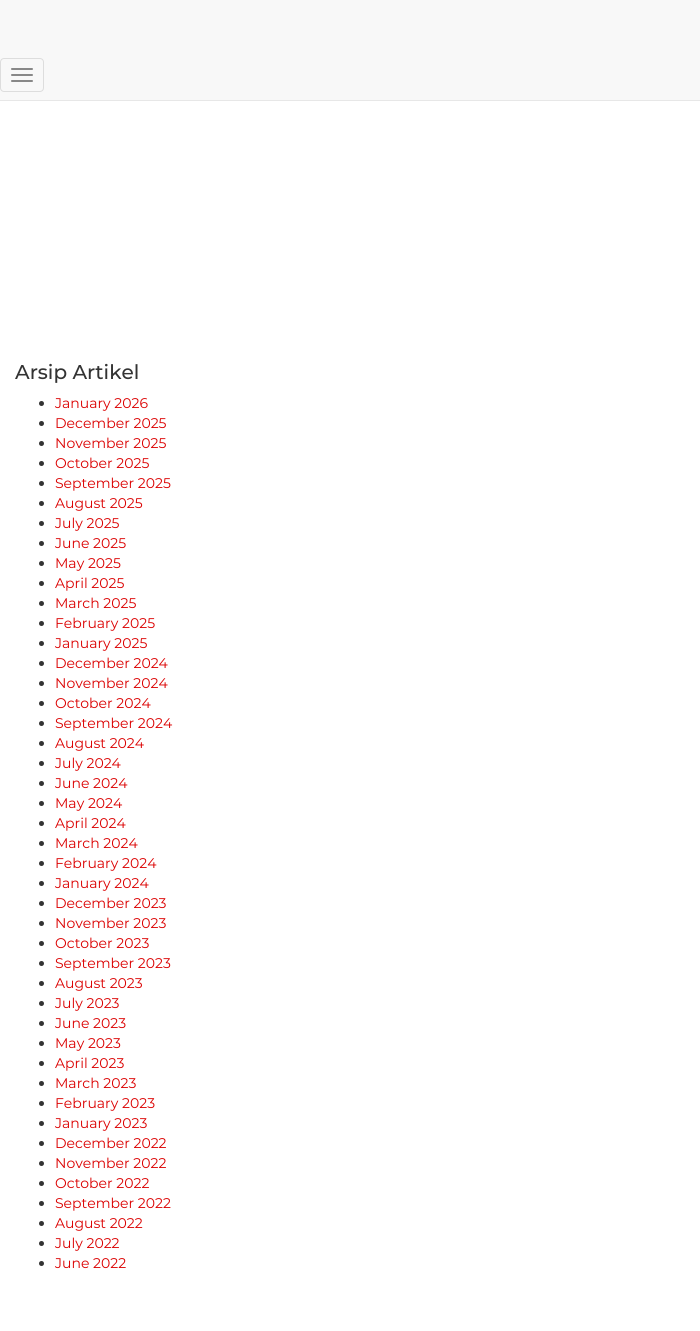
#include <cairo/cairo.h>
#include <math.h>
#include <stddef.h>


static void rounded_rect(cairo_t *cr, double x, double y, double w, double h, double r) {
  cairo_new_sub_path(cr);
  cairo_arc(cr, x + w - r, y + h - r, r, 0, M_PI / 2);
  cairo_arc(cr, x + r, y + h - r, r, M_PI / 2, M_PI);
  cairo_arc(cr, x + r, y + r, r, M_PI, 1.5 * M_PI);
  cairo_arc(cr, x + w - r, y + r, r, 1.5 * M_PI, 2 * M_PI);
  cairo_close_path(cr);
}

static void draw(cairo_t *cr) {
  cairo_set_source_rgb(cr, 1, 1, 1);
  cairo_paint(cr);
  cairo_set_source_rgb(cr, 248 / 255.0, 248 / 255.0, 248 / 255.0);
  cairo_rectangle(cr, 0, 0, 700, 100);
  cairo_fill(cr);
  cairo_set_source_rgb(cr, 231 / 255.0, 231 / 255.0, 231 / 255.0);
  cairo_rectangle(cr, 0, 100, 700, 1);
  cairo_fill(cr);
  rounded_rect(cr, 0.5, 58.5, 43, 33, 3.5);
  cairo_set_source_rgb(cr, 221 / 255.0, 221 / 255.0, 221 / 255.0);
  cairo_set_line_width(cr, 1);
  cairo_stroke(cr);
  cairo_set_source_rgb(cr, 136 / 255.0, 136 / 255.0, 136 / 255.0);
  rounded_rect(cr, 11, 68, 22, 2, 1);
  cairo_fill(cr);
  rounded_rect(cr, 11, 74, 22, 2, 1);
  cairo_fill(cr);
  rounded_rect(cr, 11, 80, 22, 2, 1);
  cairo_fill(cr);
  cairo_set_source_rgb(cr, 51 / 255.0, 51 / 255.0, 51 / 255.0);
  cairo_arc(cr, 41.5, 403.5, 2.5, 0, 2 * M_PI);
  cairo_fill(cr);
  cairo_arc(cr, 41.5, 423.5, 2.5, 0, 2 * M_PI);
  cairo_fill(cr);
  cairo_arc(cr, 41.5, 443.5, 2.5, 0, 2 * M_PI);
  cairo_fill(cr);
  cairo_arc(cr, 41.5, 463.5, 2.5, 0, 2 * M_PI);
  cairo_fill(cr);
  cairo_arc(cr, 41.5, 483.5, 2.5, 0, 2 * M_PI);
  cairo_fill(cr);
  cairo_arc(cr, 41.5, 503.5, 2.5, 0, 2 * M_PI);
  cairo_fill(cr);
  cairo_arc(cr, 41.5, 523.5, 2.5, 0, 2 * M_PI);
  cairo_fill(cr);
  cairo_arc(cr, 41.5, 543.5, 2.5, 0, 2 * M_PI);
  cairo_fill(cr);
  cairo_arc(cr, 41.5, 563.5, 2.5, 0, 2 * M_PI);
  cairo_fill(cr);
  cairo_arc(cr, 41.5, 583.5, 2.5, 0, 2 * M_PI);
  cairo_fill(cr);
  cairo_arc(cr, 41.5, 603.5, 2.5, 0, 2 * M_PI);
  cairo_fill(cr);
  cairo_arc(cr, 41.5, 623.5, 2.5, 0, 2 * M_PI);
  cairo_fill(cr);
  cairo_arc(cr, 41.5, 643.5, 2.5, 0, 2 * M_PI);
  cairo_fill(cr);
  cairo_arc(cr, 41.5, 663.5, 2.5, 0, 2 * M_PI);
  cairo_fill(cr);
  cairo_arc(cr, 41.5, 683.5, 2.5, 0, 2 * M_PI);
  cairo_fill(cr);
  cairo_arc(cr, 41.5, 703.5, 2.5, 0, 2 * M_PI);
  cairo_fill(cr);
  cairo_arc(cr, 41.5, 723.5, 2.5, 0, 2 * M_PI);
  cairo_fill(cr);
  cairo_arc(cr, 41.5, 743.5, 2.5, 0, 2 * M_PI);
  cairo_fill(cr);
  cairo_arc(cr, 41.5, 763.5, 2.5, 0, 2 * M_PI);
  cairo_fill(cr);
  cairo_arc(cr, 41.5, 783.5, 2.5, 0, 2 * M_PI);
  cairo_fill(cr);
  cairo_arc(cr, 41.5, 803.5, 2.5, 0, 2 * M_PI);
  cairo_fill(cr);
  cairo_arc(cr, 41.5, 823.5, 2.5, 0, 2 * M_PI);
  cairo_fill(cr);
  cairo_arc(cr, 41.5, 843.5, 2.5, 0, 2 * M_PI);
  cairo_fill(cr);
  cairo_arc(cr, 41.5, 863.5, 2.5, 0, 2 * M_PI);
  cairo_fill(cr);
  cairo_arc(cr, 41.5, 883.5, 2.5, 0, 2 * M_PI);
  cairo_fill(cr);
  cairo_arc(cr, 41.5, 903.5, 2.5, 0, 2 * M_PI);
  cairo_fill(cr);
  cairo_arc(cr, 41.5, 923.5, 2.5, 0, 2 * M_PI);
  cairo_fill(cr);
  cairo_arc(cr, 41.5, 943.5, 2.5, 0, 2 * M_PI);
  cairo_fill(cr);
  cairo_arc(cr, 41.5, 963.5, 2.5, 0, 2 * M_PI);
  cairo_fill(cr);
  cairo_arc(cr, 41.5, 983.5, 2.5, 0, 2 * M_PI);
  cairo_fill(cr);
  cairo_arc(cr, 41.5, 1003.5, 2.5, 0, 2 * M_PI);
  cairo_fill(cr);
  cairo_arc(cr, 41.5, 1023.5, 2.5, 0, 2 * M_PI);
  cairo_fill(cr);
  cairo_arc(cr, 41.5, 1043.5, 2.5, 0, 2 * M_PI);
  cairo_fill(cr);
  cairo_arc(cr, 41.5, 1063.5, 2.5, 0, 2 * M_PI);
  cairo_fill(cr);
  cairo_arc(cr, 41.5, 1083.5, 2.5, 0, 2 * M_PI);
  cairo_fill(cr);
  cairo_arc(cr, 41.5, 1103.5, 2.5, 0, 2 * M_PI);
  cairo_fill(cr);
  cairo_arc(cr, 41.5, 1123.5, 2.5, 0, 2 * M_PI);
  cairo_fill(cr);
  cairo_arc(cr, 41.5, 1143.5, 2.5, 0, 2 * M_PI);
  cairo_fill(cr);
  cairo_arc(cr, 41.5, 1163.5, 2.5, 0, 2 * M_PI);
  cairo_fill(cr);
  cairo_arc(cr, 41.5, 1183.5, 2.5, 0, 2 * M_PI);
  cairo_fill(cr);
  cairo_arc(cr, 41.5, 1203.5, 2.5, 0, 2 * M_PI);
  cairo_fill(cr);
  cairo_arc(cr, 41.5, 1223.5, 2.5, 0, 2 * M_PI);
  cairo_fill(cr);
  cairo_arc(cr, 41.5, 1243.5, 2.5, 0, 2 * M_PI);
  cairo_fill(cr);
  cairo_arc(cr, 41.5, 1263.5, 2.5, 0, 2 * M_PI);
  cairo_fill(cr);
  cairo_select_font_face(cr, "Montserrat Medium", CAIRO_FONT_SLANT_NORMAL, CAIRO_FONT_WEIGHT_NORMAL);
  cairo_set_font_size(cr, 20);
  cairo_move_to(cr, 15, 379);
  cairo_show_text(cr, "Arsip Artikel");
  cairo_select_font_face(cr, "Montserrat", CAIRO_FONT_SLANT_NORMAL, CAIRO_FONT_WEIGHT_NORMAL);
  cairo_set_font_size(cr, 14);
  cairo_set_source_rgb(cr, 219 / 255.0, 0, 0);
  cairo_move_to(cr, 55, 408);
  cairo_show_text(cr, "January 2026");
  cairo_move_to(cr, 55, 428);
  cairo_show_text(cr, "December 2025");
  cairo_move_to(cr, 55, 448);
  cairo_show_text(cr, "November 2025");
  cairo_move_to(cr, 55, 468);
  cairo_show_text(cr, "October 2025");
  cairo_move_to(cr, 55, 488);
  cairo_show_text(cr, "September 2025");
  cairo_move_to(cr, 55, 508);
  cairo_show_text(cr, "August 2025");
  cairo_move_to(cr, 55, 528);
  cairo_show_text(cr, "July 2025");
  cairo_move_to(cr, 55, 548);
  cairo_show_text(cr, "June 2025");
  cairo_move_to(cr, 55, 568);
  cairo_show_text(cr, "May 2025");
  cairo_move_to(cr, 55, 588);
  cairo_show_text(cr, "April 2025");
  cairo_move_to(cr, 55, 608);
  cairo_show_text(cr, "March 2025");
  cairo_move_to(cr, 55, 628);
  cairo_show_text(cr, "February 2025");
  cairo_move_to(cr, 55, 648);
  cairo_show_text(cr, "January 2025");
  cairo_move_to(cr, 55, 668);
  cairo_show_text(cr, "December 2024");
  cairo_move_to(cr, 55, 688);
  cairo_show_text(cr, "November 2024");
  cairo_move_to(cr, 55, 708);
  cairo_show_text(cr, "October 2024");
  cairo_move_to(cr, 55, 728);
  cairo_show_text(cr, "September 2024");
  cairo_move_to(cr, 55, 748);
  cairo_show_text(cr, "August 2024");
  cairo_move_to(cr, 55, 768);
  cairo_show_text(cr, "July 2024");
  cairo_move_to(cr, 55, 788);
  cairo_show_text(cr, "June 2024");
  cairo_move_to(cr, 55, 808);
  cairo_show_text(cr, "May 2024");
  cairo_move_to(cr, 55, 828);
  cairo_show_text(cr, "April 2024");
  cairo_move_to(cr, 55, 848);
  cairo_show_text(cr, "March 2024");
  cairo_move_to(cr, 55, 868);
  cairo_show_text(cr, "February 2024");
  cairo_move_to(cr, 55, 888);
  cairo_show_text(cr, "January 2024");
  cairo_move_to(cr, 55, 908);
  cairo_show_text(cr, "December 2023");
  cairo_move_to(cr, 55, 928);
  cairo_show_text(cr, "November 2023");
  cairo_move_to(cr, 55, 948);
  cairo_show_text(cr, "October 2023");
  cairo_move_to(cr, 55, 968);
  cairo_show_text(cr, "September 2023");
  cairo_move_to(cr, 55, 988);
  cairo_show_text(cr, "August 2023");
  cairo_move_to(cr, 55, 1008);
  cairo_show_text(cr, "July 2023");
  cairo_move_to(cr, 55, 1028);
  cairo_show_text(cr, "June 2023");
  cairo_move_to(cr, 55, 1048);
  cairo_show_text(cr, "May 2023");
  cairo_move_to(cr, 55, 1068);
  cairo_show_text(cr, "April 2023");
  cairo_move_to(cr, 55, 1088);
  cairo_show_text(cr, "March 2023");
  cairo_move_to(cr, 55, 1108);
  cairo_show_text(cr, "February 2023");
  cairo_move_to(cr, 55, 1128);
  cairo_show_text(cr, "January 2023");
  cairo_move_to(cr, 55, 1148);
  cairo_show_text(cr, "December 2022");
  cairo_move_to(cr, 55, 1168);
  cairo_show_text(cr, "November 2022");
  cairo_move_to(cr, 55, 1188);
  cairo_show_text(cr, "October 2022");
  cairo_move_to(cr, 55, 1208);
  cairo_show_text(cr, "September 2022");
  cairo_move_to(cr, 55, 1228);
  cairo_show_text(cr, "August 2022");
  cairo_move_to(cr, 55, 1248);
  cairo_show_text(cr, "July 2022");
  cairo_move_to(cr, 55, 1268);
  cairo_show_text(cr, "June 2022");
}

int main(void) {
  cairo_surface_t *surface = cairo_image_surface_create(CAIRO_FORMAT_RGB24, 700, 1331);
  cairo_t *cr = cairo_create(surface);
  cairo_font_options_t *options = cairo_font_options_create();
  cairo_font_options_set_hint_metrics(options, CAIRO_HINT_METRICS_OFF);
  cairo_font_options_set_hint_style(options, CAIRO_HINT_STYLE_NONE);
  cairo_set_font_options(cr, options);
  cairo_set_miter_limit(cr, 4);
  draw(cr);
  cairo_surface_write_to_png(surface, "out.png");
  cairo_font_options_destroy(options);
  cairo_destroy(cr);
  cairo_surface_destroy(surface);
  return 0;
}
